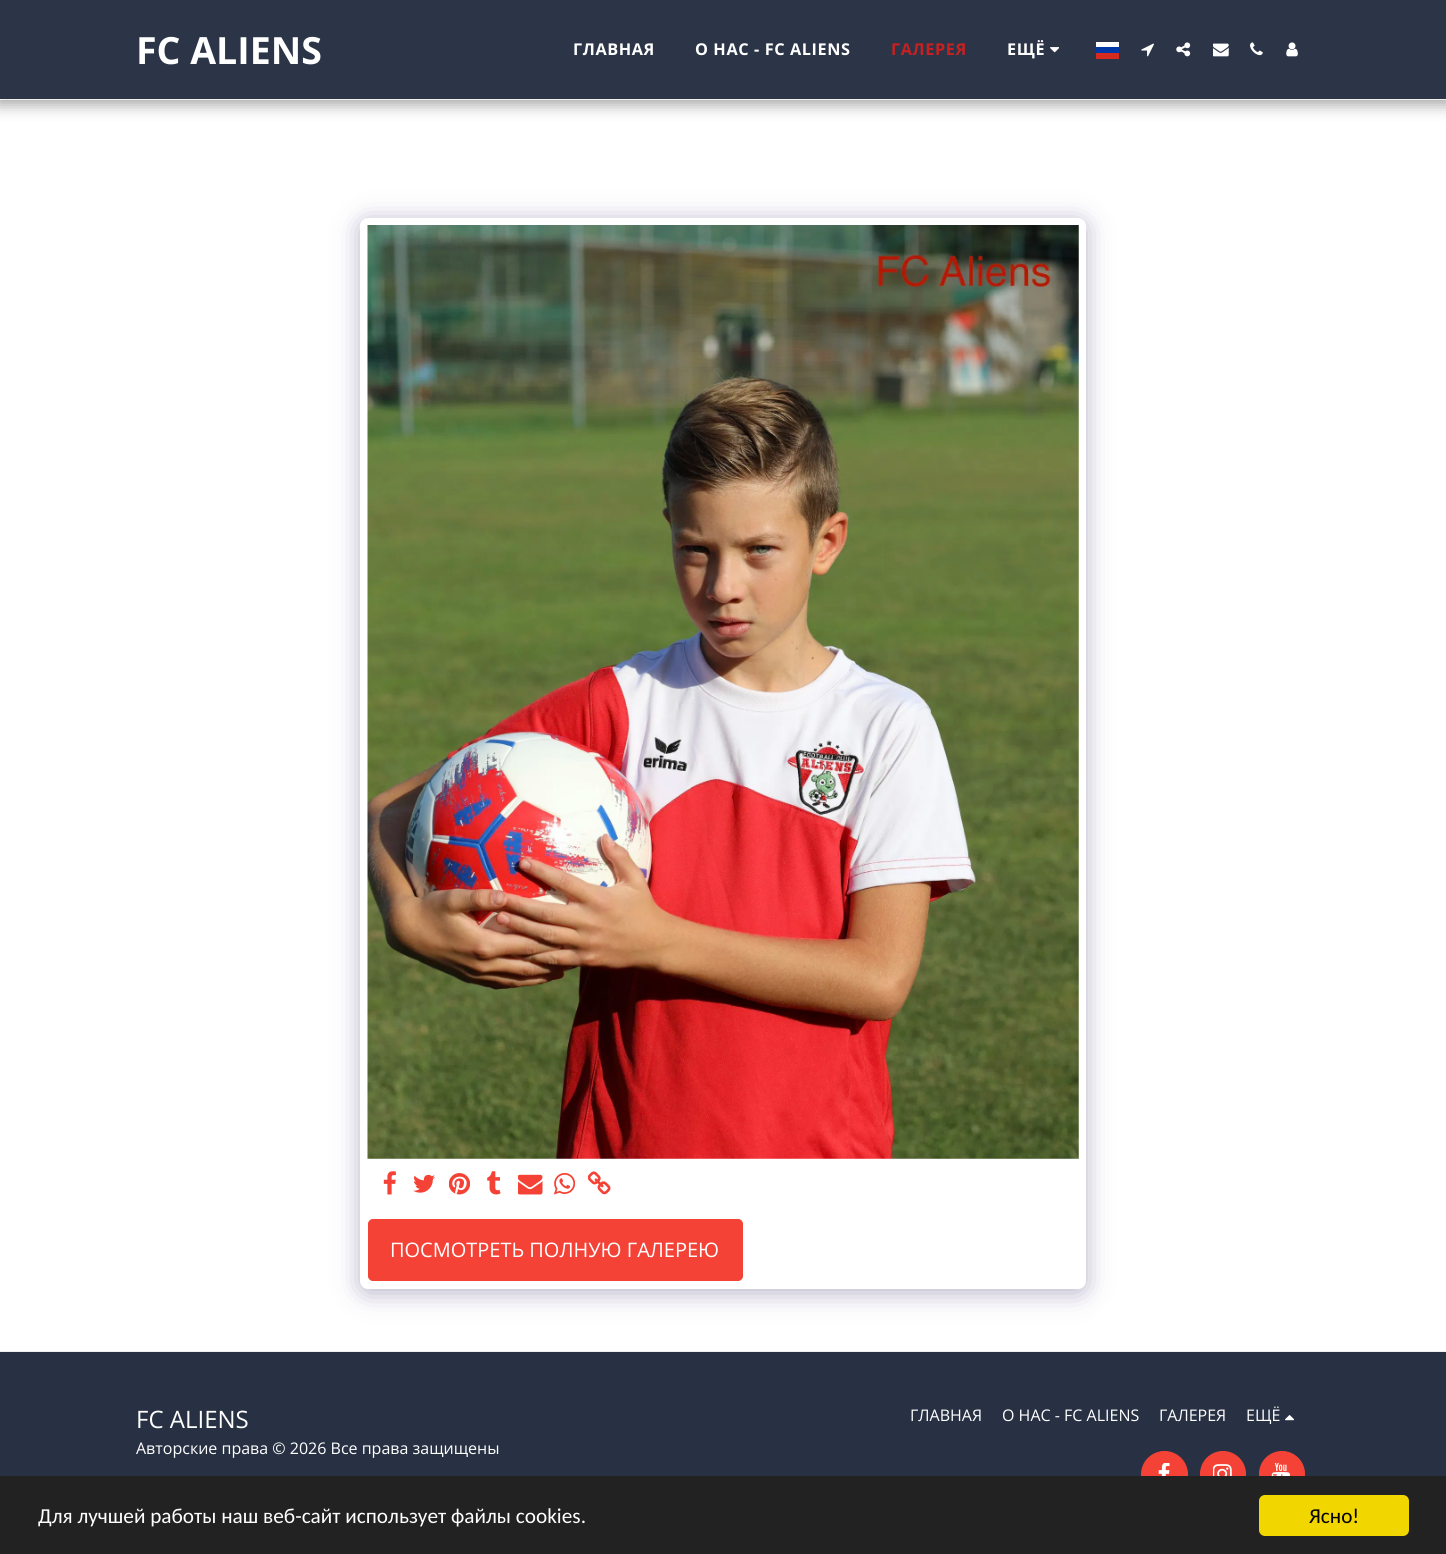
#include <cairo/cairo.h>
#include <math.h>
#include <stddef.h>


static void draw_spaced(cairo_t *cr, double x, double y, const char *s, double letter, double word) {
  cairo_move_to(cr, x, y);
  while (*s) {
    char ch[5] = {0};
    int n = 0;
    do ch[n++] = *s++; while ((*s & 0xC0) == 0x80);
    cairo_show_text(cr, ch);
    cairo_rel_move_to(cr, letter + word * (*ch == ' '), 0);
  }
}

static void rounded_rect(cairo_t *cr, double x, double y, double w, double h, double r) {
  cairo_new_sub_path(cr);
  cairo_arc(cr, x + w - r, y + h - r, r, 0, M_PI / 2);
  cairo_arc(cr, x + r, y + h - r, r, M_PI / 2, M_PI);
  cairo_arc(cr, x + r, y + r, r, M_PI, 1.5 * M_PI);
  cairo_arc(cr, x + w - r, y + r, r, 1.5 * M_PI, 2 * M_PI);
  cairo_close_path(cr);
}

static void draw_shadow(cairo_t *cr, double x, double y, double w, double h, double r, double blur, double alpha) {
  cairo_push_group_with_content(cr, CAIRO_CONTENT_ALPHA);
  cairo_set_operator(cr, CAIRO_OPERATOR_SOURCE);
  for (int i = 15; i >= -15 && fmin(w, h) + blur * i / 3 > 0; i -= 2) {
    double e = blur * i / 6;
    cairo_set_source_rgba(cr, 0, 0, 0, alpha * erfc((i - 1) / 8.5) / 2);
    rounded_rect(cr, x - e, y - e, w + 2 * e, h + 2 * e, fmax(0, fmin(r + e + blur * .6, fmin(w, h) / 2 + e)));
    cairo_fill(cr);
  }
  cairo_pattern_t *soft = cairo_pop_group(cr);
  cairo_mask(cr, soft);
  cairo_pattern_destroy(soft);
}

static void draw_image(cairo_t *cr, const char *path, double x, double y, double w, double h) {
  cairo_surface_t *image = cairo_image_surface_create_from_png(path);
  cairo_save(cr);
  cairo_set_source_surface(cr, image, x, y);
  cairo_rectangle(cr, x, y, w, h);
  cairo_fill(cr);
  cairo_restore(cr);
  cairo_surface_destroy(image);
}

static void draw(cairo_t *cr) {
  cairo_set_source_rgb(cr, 1, 1, 1);
  cairo_paint(cr);
  cairo_set_source_rgb(cr, 0, 0, 0);
  draw_shadow(cr, -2, 0, 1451, 105, 0, 7.5, 0.35);
  cairo_set_source_rgb(cr, 44 / 255.0, 53 / 255.0, 71 / 255.0);
  cairo_rectangle(cr, 0, 0, 1446, 99);
  cairo_fill(cr);
  cairo_set_source_rgb(cr, 243 / 255.0, 238 / 255.0, 238 / 255.0);
  cairo_rectangle(cr, 0, 99, 1446, 1);
  cairo_fill(cr);
  draw_image(cr, "images/1.png", 1050, 47, 9, 6);
  cairo_set_source_rgb(cr, 1, 1, 1);
  cairo_rectangle(cr, 1096, 42, 23, 5);
  cairo_fill(cr);
  cairo_set_source_rgb(cr, 0, 57 / 255.0, 166 / 255.0);
  cairo_rectangle(cr, 1096, 47, 23, 6);
  cairo_fill(cr);
  cairo_set_source_rgb(cr, 213 / 255.0, 43 / 255.0, 30 / 255.0);
  cairo_rectangle(cr, 1096, 53, 23, 6);
  cairo_fill(cr);
  draw_image(cr, "images/2.png", 1141, 43, 13, 14);
  draw_image(cr, "images/3.png", 1176, 42, 15, 15);
  draw_image(cr, "images/4.png", 1213, 43, 16, 14);
  draw_image(cr, "images/5.png", 1250, 42, 13, 14);
  draw_image(cr, "images/6.png", 1286, 42, 12, 15);
  cairo_set_source_rgb(cr, 77 / 255.0, 63 / 255.0, 122 / 255.0);
  draw_shadow(cr, 360, 221, 726, 1072, 8, 12.5, 0.4);
  cairo_set_source_rgb(cr, 1, 1, 1);
  rounded_rect(cr, 360, 218, 726, 1071, 8);
  cairo_fill(cr);
  draw_image(cr, "images/7.png", 367, 225, 712, 934);
  draw_image(cr, "images/8.png", 383, 1171, 13, 24);
  draw_image(cr, "images/9.png", 413, 1174, 22, 19);
  draw_image(cr, "images/10.png", 449, 1173, 21, 22);
  draw_image(cr, "images/11.png", 487, 1171, 14, 24);
  draw_image(cr, "images/12.png", 518, 1174, 25, 21);
  draw_image(cr, "images/13.png", 554, 1173, 21, 22);
  draw_image(cr, "images/14.png", 588, 1171, 23, 24);
  cairo_set_source_rgb(cr, 244 / 255.0, 67 / 255.0, 54 / 255.0);
  rounded_rect(cr, 368.5, 1219.5, 374, 61, 4.5);
  cairo_fill_preserve(cr);
  cairo_set_line_width(cr, 1);
  cairo_stroke(cr);
  cairo_set_source_rgb(cr, 40 / 255.0, 49 / 255.0, 67 / 255.0);
  cairo_rectangle(cr, 0, 1352, 1446, 124);
  cairo_fill(cr);
  cairo_set_source_rgb(cr, 243 / 255.0, 238 / 255.0, 238 / 255.0);
  cairo_rectangle(cr, 0, 1351, 1446, 1);
  cairo_fill(cr);
  draw_image(cr, "images/15.png", 1285, 1415, 9, 6);
  cairo_set_source_rgb(cr, 244 / 255.0, 67 / 255.0, 54 / 255.0);
  cairo_arc(cr, 1164.5, 1474.5, 23, 0, 2 * M_PI);
  cairo_fill_preserve(cr);
  cairo_stroke(cr);
  draw_image(cr, "images/16.png", 1158, 1463, 12, 13);
  rounded_rect(cr, 1200.5, 1451.5, 45, 46, 22.5);
  cairo_fill_preserve(cr);
  cairo_stroke(cr);
  draw_image(cr, "images/17.png", 1213, 1464, 19, 12);
  rounded_rect(cr, 1259.5, 1451.5, 45, 46, 22.5);
  cairo_fill_preserve(cr);
  cairo_stroke(cr);
  draw_image(cr, "images/18.png", 1271, 1463, 20, 13);
  cairo_set_source_rgb(cr, 34 / 255.0, 34 / 255.0, 34 / 255.0);
  cairo_rectangle(cr, 0, 1476, 1446, 78);
  cairo_fill(cr);
  cairo_set_source_rgb(cr, 241 / 255.0, 214 / 255.0, 0);
  rounded_rect(cr, 1259, 1495, 150, 41, 6);
  cairo_fill(cr);
  cairo_select_font_face(cr, "Open Sans", CAIRO_FONT_SLANT_NORMAL, CAIRO_FONT_WEIGHT_BOLD);
  cairo_set_font_size(cr, 37.5);
  cairo_set_source_rgb(cr, 1, 1, 1);
  cairo_move_to(cr, 136, 64);
  cairo_show_text(cr, "FC ALIENS");
  cairo_set_font_size(cr, 16.25);
  draw_spaced(cr, 573, 55, "ГЛАВНАЯ", 0.6, 0);
  draw_spaced(cr, 695, 55, "О НАС - FC ALIENS", 0.6, 0);
  cairo_set_source_rgb(cr, 198 / 255.0, 32 / 255.0, 32 / 255.0);
  draw_spaced(cr, 891, 55, "ГАЛЕРЕЯ", 0.6, 0);
  cairo_set_source_rgb(cr, 1, 1, 1);
  draw_spaced(cr, 1007, 55, "ЕЩЁ", 0.6, 0);
  cairo_select_font_face(cr, "Open Sans", CAIRO_FONT_SLANT_NORMAL, CAIRO_FONT_WEIGHT_NORMAL);
  cairo_set_font_size(cr, 20);
  cairo_move_to(cr, 390, 1257);
  cairo_show_text(cr, "ПОСМОТРЕТЬ ПОЛНУЮ ГАЛЕРЕЮ");
  cairo_set_font_size(cr, 24);
  cairo_move_to(cr, 136, 1428);
  cairo_show_text(cr, "FC ALIENS");
  cairo_set_font_size(cr, 16);
  cairo_move_to(cr, 136, 1454);
  cairo_show_text(cr, "Авторские права © 2026 Все права защищены");
  cairo_move_to(cr, 910, 1421);
  cairo_show_text(cr, "ГЛАВНАЯ");
  cairo_move_to(cr, 1002, 1421);
  cairo_show_text(cr, "О НАС - FC ALIENS");
  cairo_move_to(cr, 1159, 1421);
  cairo_show_text(cr, "ГАЛЕРЕЯ");
  cairo_move_to(cr, 1246, 1421);
  cairo_show_text(cr, "ЕЩЁ");
  cairo_select_font_face(cr, "Carlito", CAIRO_FONT_SLANT_NORMAL, CAIRO_FONT_WEIGHT_NORMAL);
  cairo_set_font_size(cr, 21.25);
  cairo_move_to(cr, 38, 1523);
  cairo_show_text(cr, "Для лучшей работы наш веб-сайт использует файлы cookies.");
  cairo_set_source_rgb(cr, 0, 0, 0);
  cairo_move_to(cr, 1309, 1523);
  cairo_show_text(cr, "Ясно!");
}

int main(void) {
  cairo_surface_t *surface = cairo_image_surface_create(CAIRO_FORMAT_RGB24, 1446, 1554);
  cairo_t *cr = cairo_create(surface);
  cairo_font_options_t *options = cairo_font_options_create();
  cairo_font_options_set_hint_metrics(options, CAIRO_HINT_METRICS_OFF);
  cairo_font_options_set_hint_style(options, CAIRO_HINT_STYLE_NONE);
  cairo_set_font_options(cr, options);
  cairo_set_miter_limit(cr, 4);
  draw(cr);
  cairo_surface_write_to_png(surface, "out.png");
  cairo_font_options_destroy(options);
  cairo_destroy(cr);
  cairo_surface_destroy(surface);
  return 0;
}
